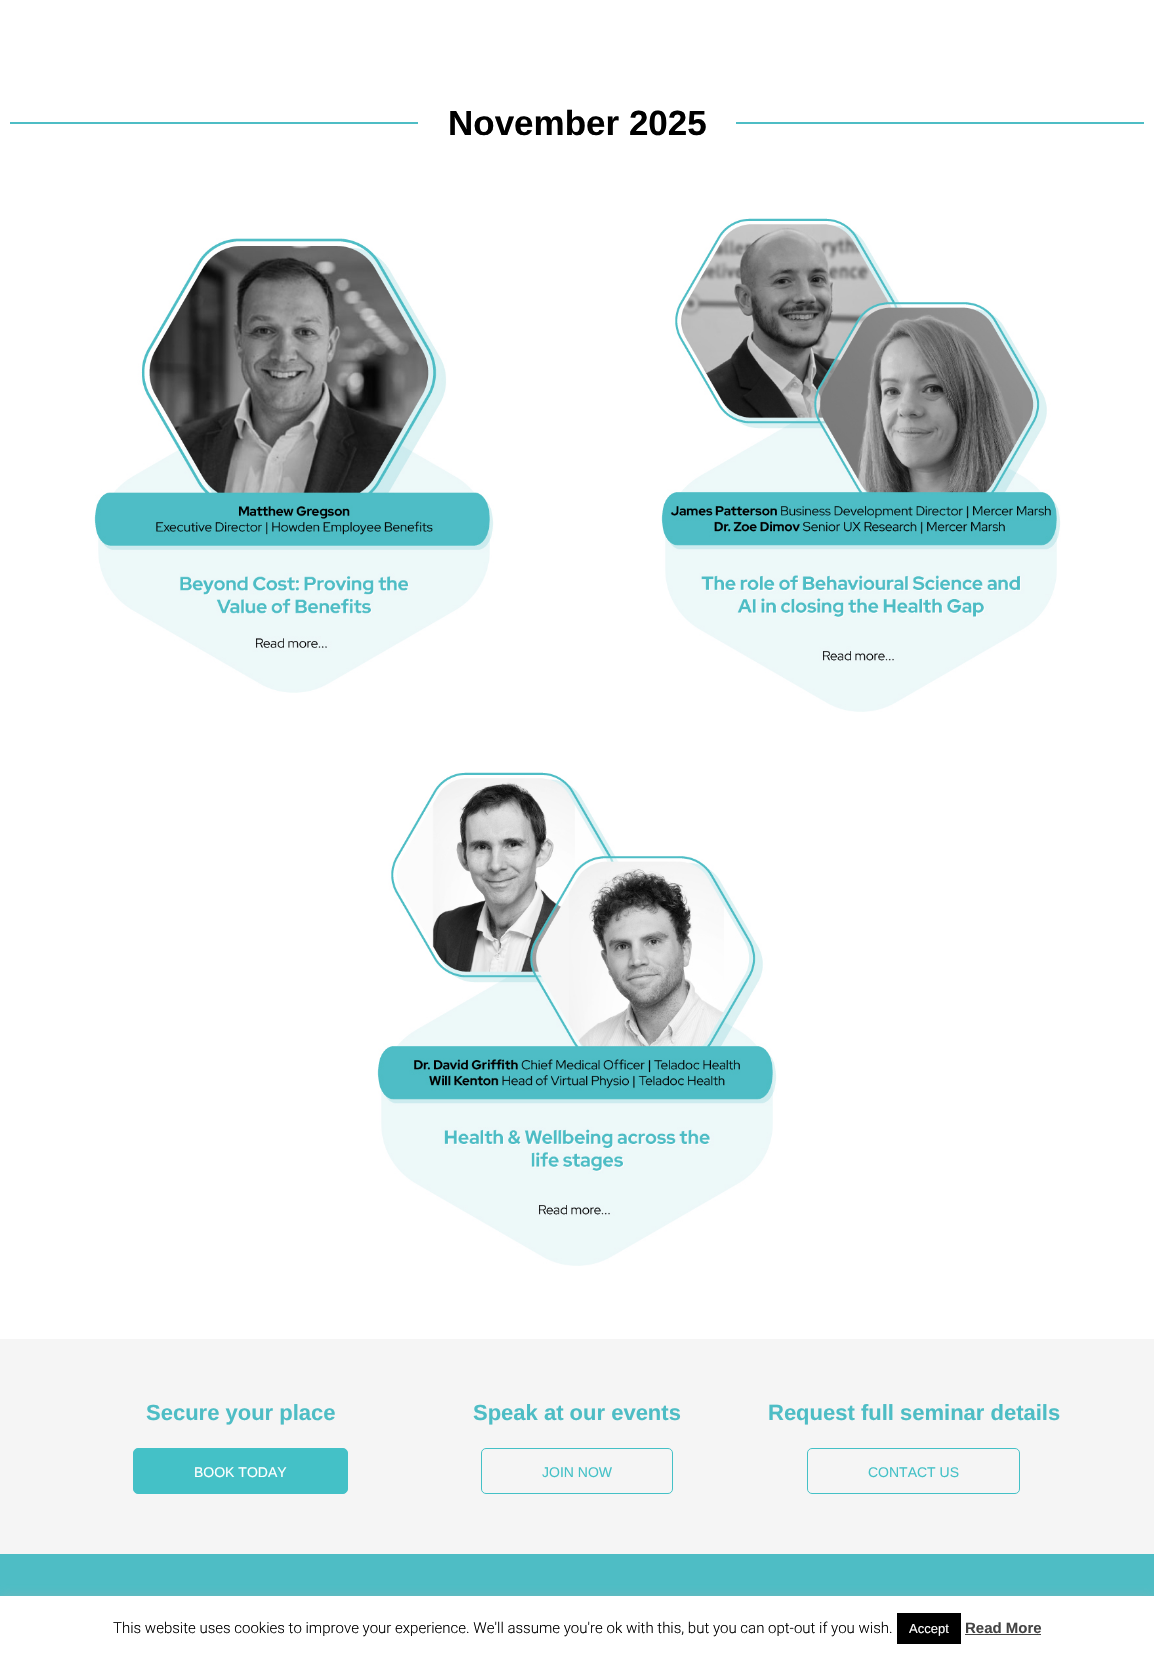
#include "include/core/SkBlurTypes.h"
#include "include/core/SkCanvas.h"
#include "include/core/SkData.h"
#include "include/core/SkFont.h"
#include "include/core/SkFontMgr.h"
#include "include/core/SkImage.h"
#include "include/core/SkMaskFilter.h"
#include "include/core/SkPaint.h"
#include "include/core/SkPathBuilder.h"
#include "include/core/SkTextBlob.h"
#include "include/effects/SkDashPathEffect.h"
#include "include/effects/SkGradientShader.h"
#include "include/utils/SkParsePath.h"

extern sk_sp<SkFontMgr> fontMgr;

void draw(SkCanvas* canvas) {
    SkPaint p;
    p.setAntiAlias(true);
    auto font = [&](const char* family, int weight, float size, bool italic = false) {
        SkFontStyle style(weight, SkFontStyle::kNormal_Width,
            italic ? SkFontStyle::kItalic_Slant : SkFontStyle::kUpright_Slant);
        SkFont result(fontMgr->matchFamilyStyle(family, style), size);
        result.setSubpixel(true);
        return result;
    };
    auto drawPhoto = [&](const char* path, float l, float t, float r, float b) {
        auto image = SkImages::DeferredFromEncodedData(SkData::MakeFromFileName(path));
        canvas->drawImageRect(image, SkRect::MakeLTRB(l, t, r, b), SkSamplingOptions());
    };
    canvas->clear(0xFFFFFFFF);
    p.setColor(0xFF4EBDC5);
    canvas->drawRect(SkRect::MakeLTRB(10, 122, 418, 124), p);
    auto font1 = font("Liberation Sans", 700, 35);
    p.setColor(0xFF000000);
    canvas->drawString("November 2025", 448, 135, font1, p);
    p.setColor(0xFF4EBDC5);
    canvas->drawRect(SkRect::MakeLTRB(736, 122, 1144, 124), p);
    drawPhoto("media/1.png", 94, 238, 494, 693);
    drawPhoto("media/2.png", 661, 218, 1061, 712);
    drawPhoto("media/3.png", 377, 772, 777, 1266);
    p.setColor(0xFFF5F5F5);
    canvas->drawRect(SkRect::MakeLTRB(0, 1339, 1154, 1554), p);
    auto font2 = font("Liberation Sans", 700, 22);
    p.setColor(0xFF4EBDC5);
    canvas->drawString("Secure your place", 146, 1420, font2, p);
    p.setColor(0xFF44C1C7);
    canvas->drawRoundRect(SkRect::MakeLTRB(133.5f, 1448.5f, 347.5f, 1493.5f), 4.5f, 4.5f, p);
    p.setStyle(SkPaint::kStroke_Style);
    p.setStrokeWidth(1);
    canvas->drawRoundRect(SkRect::MakeLTRB(133.5f, 1448.5f, 347.5f, 1493.5f), 4.5f, 4.5f, p);
    auto font3 = font("Liberation Sans", 400, 14);
    p.setStyle(SkPaint::kFill_Style);
    p.setColor(0xFFFFFFFF);
    canvas->drawString("BOOK TODAY", 194, 1477, font3, p);
    p.setColor(0xFF4EBDC5);
    canvas->drawString("Speak at our events", 473, 1420, font2, p);
    p.setStyle(SkPaint::kStroke_Style);
    p.setColor(0xFF44C1C7);
    canvas->drawRoundRect(SkRect::MakeLTRB(481.5f, 1448.5f, 672.5f, 1493.5f), 4.5f, 4.5f, p);
    p.setStyle(SkPaint::kFill_Style);
    canvas->drawString("JOIN NOW", 542, 1477, font3, p);
    p.setColor(0xFF4EBDC5);
    canvas->drawString("Request full seminar details", 768, 1420, font2, p);
    p.setStyle(SkPaint::kStroke_Style);
    p.setColor(0xFF44C1C7);
    canvas->drawRoundRect(SkRect::MakeLTRB(807.5f, 1448.5f, 1019.5f, 1493.5f), 4.5f, 4.5f, p);
    p.setStyle(SkPaint::kFill_Style);
    canvas->drawString("CONTACT US", 868, 1477, font3, p);
    p.setColor(0xFF4EBDC5);
    canvas->drawRect(SkRect::MakeLTRB(0, 1554, 1154, 1596), p);
    p.setColor(0x4DACABAB);
    p.setMaskFilter(SkMaskFilter::MakeBlur(kNormal_SkBlurStyle, 5));
    canvas->drawRect(SkRect::MakeLTRB(0, 1595, 1154, 1655), p);
    p.setMaskFilter(nullptr);
    p.setColor(0xFFFFFFFF);
    canvas->drawRect(SkRect::MakeLTRB(0, 1596, 1154, 1656), p);
    auto font4 = font("Roboto", 300, 15);
    p.setColor(0xFF000000);
    canvas->drawString("This website uses cookies to improve your experience. We'll assume you're ok with this, but you can opt-out if you wish.", 113, 1633, font4, p);
    canvas->drawRect(SkRect::MakeLTRB(897, 1613, 961, 1644), p);
    auto font5 = font("Liberation Sans", 400, 13);
    p.setColor(0xFFFFFFFF);
    canvas->drawString("Accept", 909, 1633, font5, p);
    auto font6 = font("Liberation Sans", 700, 15);
    p.setColor(0xFF444444);
    canvas->drawString("Read More", 965, 1633, font6, p);
    canvas->drawRect(SkRect::MakeLTRB(965, 1634, 1041, 1635), p);
}
